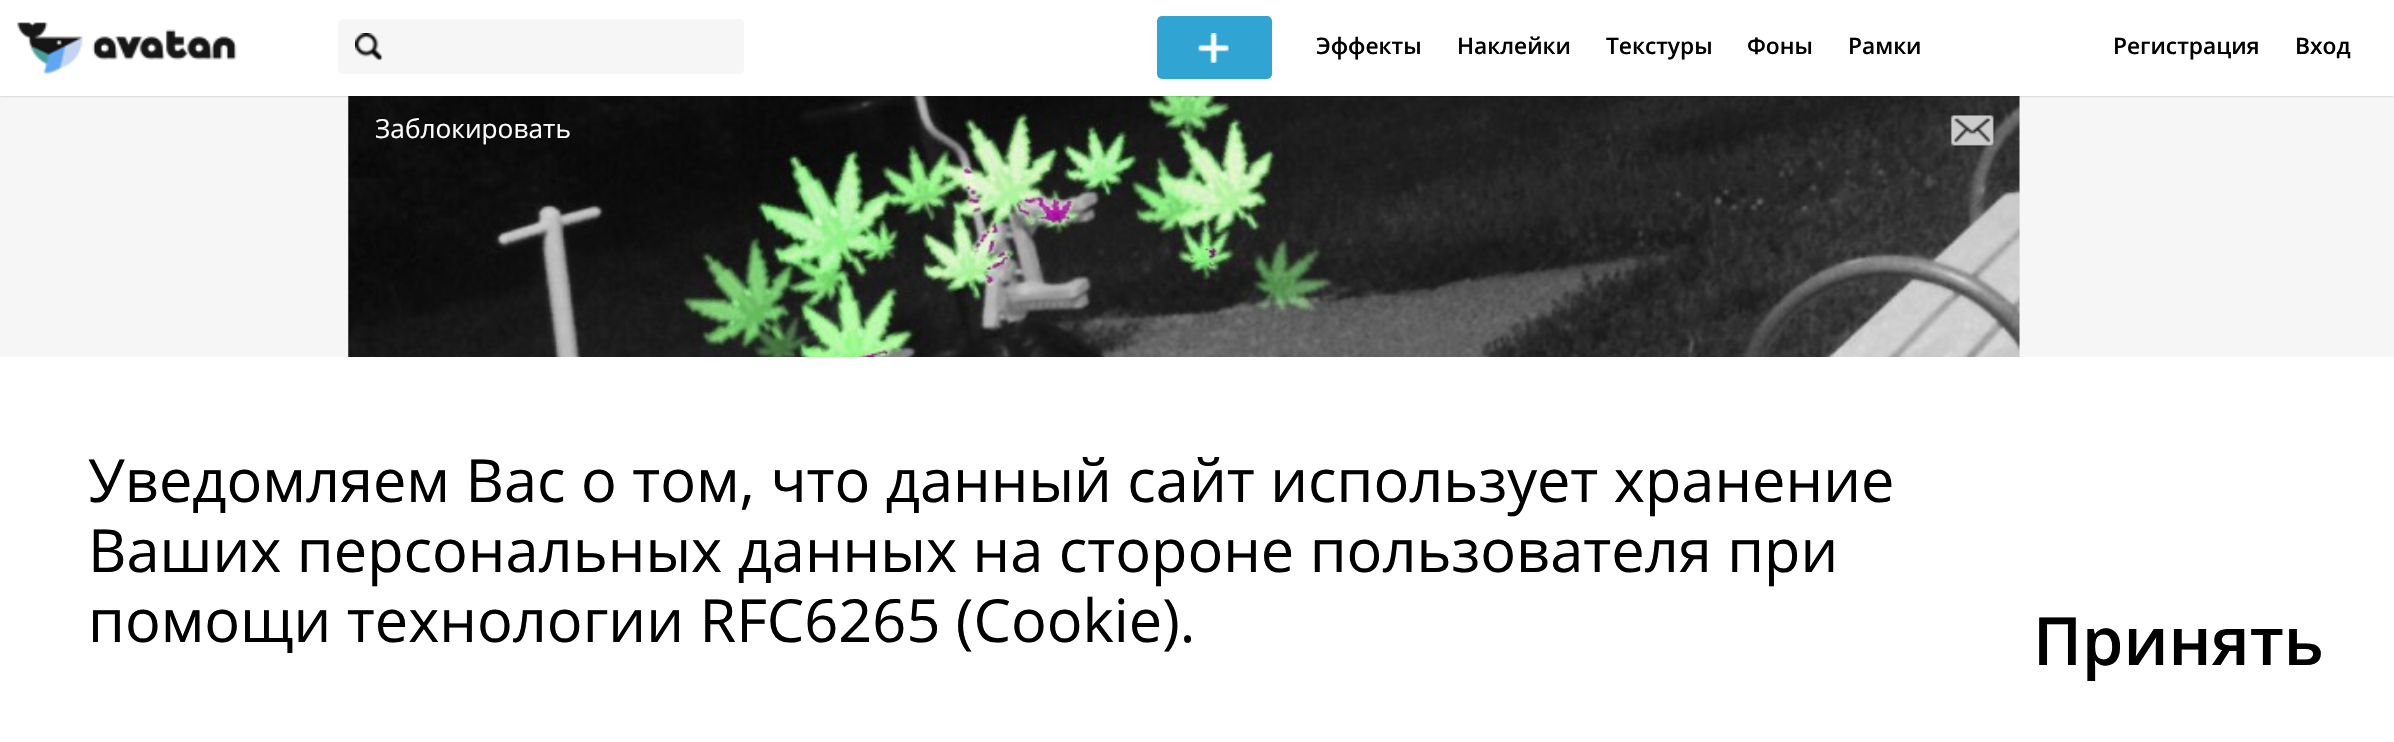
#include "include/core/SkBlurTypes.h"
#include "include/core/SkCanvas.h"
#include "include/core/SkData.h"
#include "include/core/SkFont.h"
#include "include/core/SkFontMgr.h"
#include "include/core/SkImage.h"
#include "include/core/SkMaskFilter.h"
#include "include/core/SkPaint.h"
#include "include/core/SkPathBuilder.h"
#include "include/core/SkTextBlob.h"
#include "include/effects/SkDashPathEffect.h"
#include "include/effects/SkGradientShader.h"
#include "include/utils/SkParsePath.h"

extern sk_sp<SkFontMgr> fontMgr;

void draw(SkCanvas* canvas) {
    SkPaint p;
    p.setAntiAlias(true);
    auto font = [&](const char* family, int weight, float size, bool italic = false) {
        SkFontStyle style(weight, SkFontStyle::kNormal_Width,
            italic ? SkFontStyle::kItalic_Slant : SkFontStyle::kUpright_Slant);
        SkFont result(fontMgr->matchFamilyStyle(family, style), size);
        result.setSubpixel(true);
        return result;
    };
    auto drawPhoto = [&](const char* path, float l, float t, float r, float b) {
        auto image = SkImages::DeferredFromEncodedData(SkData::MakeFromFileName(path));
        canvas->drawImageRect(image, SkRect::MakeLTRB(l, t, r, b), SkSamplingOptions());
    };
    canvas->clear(0xFFF6F6F6);
    p.setColor(0xFFECECEC);
    canvas->drawRect(SkRect::MakeLTRB(348, 96, 2020, 357), p);
    drawPhoto("media/4.png", 348, 96, 2020, 357);
    p.setColor(0x4D000000);
    p.setMaskFilter(SkMaskFilter::MakeBlur(kNormal_SkBlurStyle, 1));
    canvas->drawRect(SkRect::MakeLTRB(0, 0, 2394, 96), p);
    p.setMaskFilter(nullptr);
    p.setColor(0xFFFFFFFF);
    canvas->drawRect(SkRect::MakeLTRB(0, 0, 2394, 96), p);
    drawPhoto("media/1.png", 17, 22, 237, 74);
    p.setColor(0xFFF6F6F6);
    canvas->drawRoundRect(SkRect::MakeLTRB(338, 19, 744, 74), 5, 5, p);
    drawPhoto("media/2.png", 355, 33, 383, 61);
    p.setColor(0xFF30A5D4);
    canvas->drawRoundRect(SkRect::MakeLTRB(1157, 16, 1272, 79), 5, 5, p);
    drawPhoto("media/3.png", 1198, 33, 1229, 63);
    auto font1 = font("Open Sans", 600, 22.75f);
    p.setColor(0xFF000000);
    {
        const struct { const char* s; float x, y; } items[] = {
            {"Эффекты", 1316, 54},
            {"Наклейки", 1457, 54},
            {"Текстуры", 1606, 54},
            {"Фоны", 1747, 54},
            {"Рамки", 1848, 54},
            {"Регистрация", 2113, 54},
            {"Вход", 2295, 54},
        };
        for (auto [s, x, y] : items) {
            canvas->drawString(s, x, y, font1, p);
        }
    }
    auto font2 = font("Open Sans", 400, 26.25f);
    p.setColor(0xFFFFFFFF);
    canvas->drawString("Заблокировать", 375, 138, font2, p);
    drawPhoto("media/5.png", 1950, 115, 1995, 147);
    canvas->drawRect(SkRect::MakeLTRB(0, 357, 2394, 742), p);
    auto font3 = font("Open Sans", 400, 59.5f);
    p.setColor(0xFF000000);
    {
        const struct { const char* s; float x, y; } items[] = {
            {"Уведомляем Вас о том, что данный сайт использует хранение", 88, 502},
            {"Ваших персональных данных на стороне пользователя при", 88, 572},
            {"помощи технологии RFC6265 (Cookie).", 88, 642},
        };
        for (auto [s, x, y] : items) {
            canvas->drawString(s, x, y, font3, p);
        }
    }
    auto font4 = font("Open Sans", 600, 66.5f);
    canvas->drawString("Принять", 2033, 665, font4, p);
}
